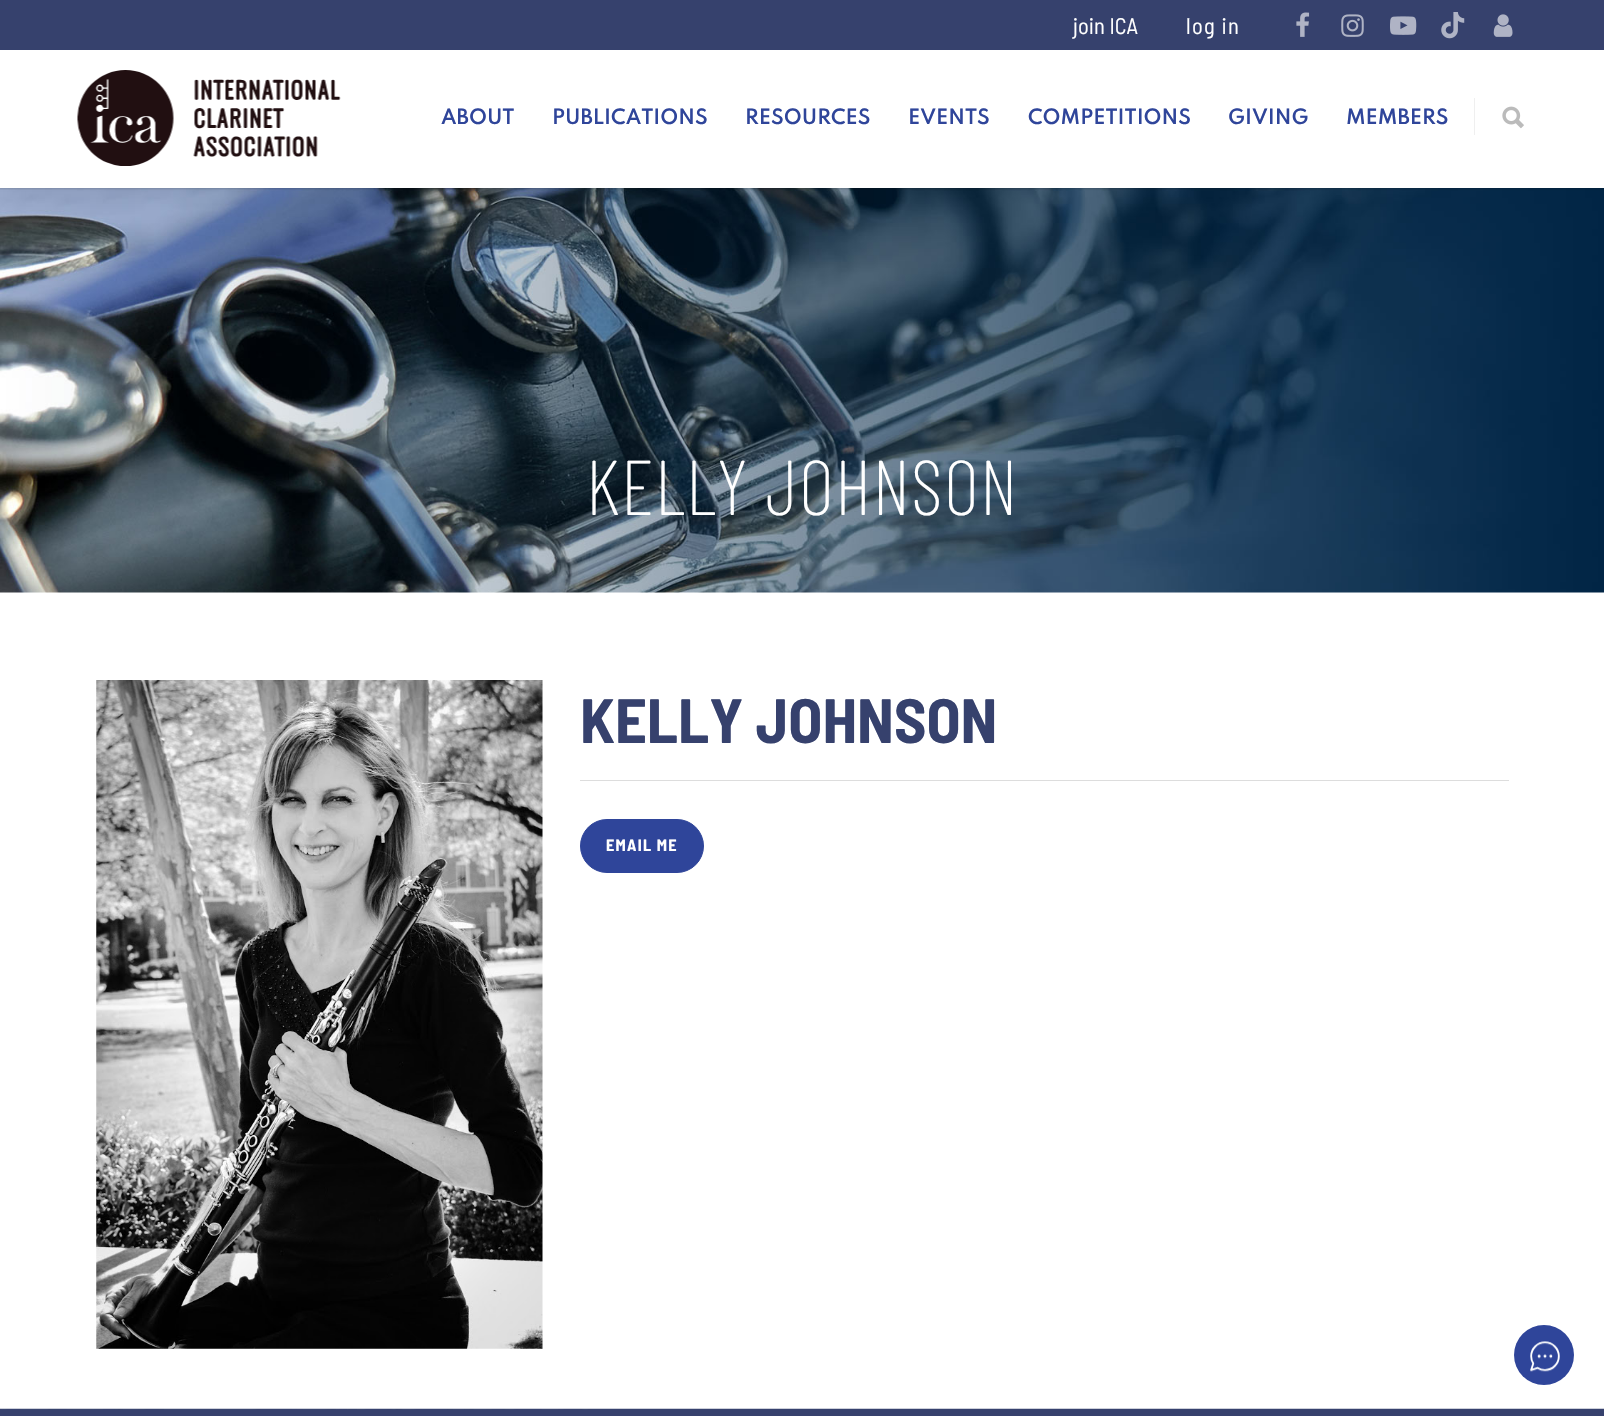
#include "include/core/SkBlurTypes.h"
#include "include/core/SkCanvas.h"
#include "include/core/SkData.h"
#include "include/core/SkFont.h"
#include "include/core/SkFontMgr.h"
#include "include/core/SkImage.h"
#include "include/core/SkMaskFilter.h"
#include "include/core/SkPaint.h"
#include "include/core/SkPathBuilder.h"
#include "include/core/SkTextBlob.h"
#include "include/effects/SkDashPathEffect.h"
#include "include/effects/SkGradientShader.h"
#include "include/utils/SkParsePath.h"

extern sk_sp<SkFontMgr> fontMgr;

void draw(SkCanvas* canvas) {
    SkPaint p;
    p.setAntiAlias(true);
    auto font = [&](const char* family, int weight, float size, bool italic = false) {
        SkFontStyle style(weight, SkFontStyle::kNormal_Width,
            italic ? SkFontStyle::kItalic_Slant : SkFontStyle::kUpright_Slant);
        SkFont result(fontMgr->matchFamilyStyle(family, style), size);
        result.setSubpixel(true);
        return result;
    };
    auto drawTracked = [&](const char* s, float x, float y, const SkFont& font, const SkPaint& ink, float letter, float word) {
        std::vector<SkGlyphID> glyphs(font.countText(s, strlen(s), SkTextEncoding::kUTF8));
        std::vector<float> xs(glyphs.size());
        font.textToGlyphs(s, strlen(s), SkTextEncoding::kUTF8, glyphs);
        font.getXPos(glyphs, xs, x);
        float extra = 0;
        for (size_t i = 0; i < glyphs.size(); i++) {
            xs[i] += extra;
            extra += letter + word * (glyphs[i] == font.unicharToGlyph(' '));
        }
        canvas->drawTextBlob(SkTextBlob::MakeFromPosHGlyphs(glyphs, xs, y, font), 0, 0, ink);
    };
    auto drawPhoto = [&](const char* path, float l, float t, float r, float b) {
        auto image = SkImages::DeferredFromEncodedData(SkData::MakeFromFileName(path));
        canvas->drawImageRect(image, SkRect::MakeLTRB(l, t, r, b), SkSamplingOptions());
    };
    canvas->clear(0xFFFFFFFF);
    drawPhoto("media/8.png", 0, 188, 1604, 593);
    p.setColor(0x29000000);
    p.setMaskFilter(SkMaskFilter::MakeBlur(kNormal_SkBlurStyle, 1));
    canvas->drawRect(SkRect::MakeLTRB(-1, -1, 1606, 189), p);
    p.setMaskFilter(nullptr);
    p.setColor(0xFF36416D);
    canvas->drawRect(SkRect::MakeLTRB(0, 0, 1604, 50), p);
    auto font1 = font("Barlow Semi Condensed", 400, 22.5f);
    p.setColor(0xFFFFFFFF);
    canvas->drawString("join ICA", 1073, 34, font1, p);
    drawTracked("log in", 1186, 34, font1, p, 1.25f, 0);
    drawPhoto("media/1.png", 1296, 12, 1310, 37);
    drawPhoto("media/2.png", 1341, 14, 1364, 37);
    drawPhoto("media/3.png", 1390, 16, 1417, 35);
    drawPhoto("media/4.png", 1441, 12, 1465, 39);
    drawPhoto("media/5.png", 1493, 14, 1513, 37);
    canvas->drawRect(SkRect::MakeLTRB(0, 50, 1604, 188), p);
    drawPhoto("media/6.png", 77, 70, 341, 166);
    auto font2 = font("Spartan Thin", 600, 18.75f);
    p.setColor(0xFF2F459A);
    {
        const struct { const char* s; float x, y; } items[] = {
            {"ABOUT", 441, 124},
            {"PUBLICATIONS", 552, 124},
            {"RESOURCES", 745, 124},
            {"EVENTS", 908, 124},
            {"COMPETITIONS", 1028, 124},
            {"GIVING", 1228, 124},
            {"MEMBERS", 1346, 124},
        };
        for (auto [s, x, y] : items) {
            canvas->drawString(s, x, y, font2, p);
        }
    }
    p.setColor(0xFFEFEFEF);
    canvas->drawRect(SkRect::MakeLTRB(1474, 98, 1475, 135), p);
    drawPhoto("media/7.png", 1502, 106, 1524, 129);
    auto font3 = font("Barlow Condensed", 200, 77.5f);
    p.setColor(0xFFFFFFFF);
    drawTracked("KELLY JOHNSON", 586, 515, font3, p, 1.25f, 0);
    drawPhoto("media/9.png", 96, 680, 543, 1349);
    auto font4 = font("Barlow Semi Condensed", 700, 62.5f);
    p.setColor(0xFF36416D);
    canvas->drawString("KELLY JOHNSON", 580, 743, font4, p);
    p.setColor(0xFFDDDDDD);
    canvas->drawRect(SkRect::MakeLTRB(580, 780, 1509, 781), p);
    p.setColor(0xFF2F459A);
    canvas->drawRoundRect(SkRect::MakeLTRB(580.5f, 819.5f, 703.5f, 872.5f), 26.5f, 26.5f, p);
    p.setStyle(SkPaint::kStroke_Style);
    p.setStrokeWidth(1);
    canvas->drawRoundRect(SkRect::MakeLTRB(580.5f, 819.5f, 703.5f, 872.5f), 26.5f, 26.5f, p);
    auto font5 = font("Barlow Semi Condensed", 700, 16.25f);
    p.setStyle(SkPaint::kFill_Style);
    p.setColor(0xFFFFFFFF);
    drawTracked("EMAIL ME", 606, 851, font5, p, 1.25f, 0);
    p.setColor(0xFF36416D);
    canvas->drawRect(SkRect::MakeLTRB(0, 1410, 1604, 1416), p);
    drawPhoto("media/10.png", 0, 1408, 1604, 1410);
    p.setColor(0xFF2F459A);
    canvas->drawCircle(1544, 1355, 30, p);
    drawPhoto("media/11.png", 1530, 1341, 1560, 1372);
}
